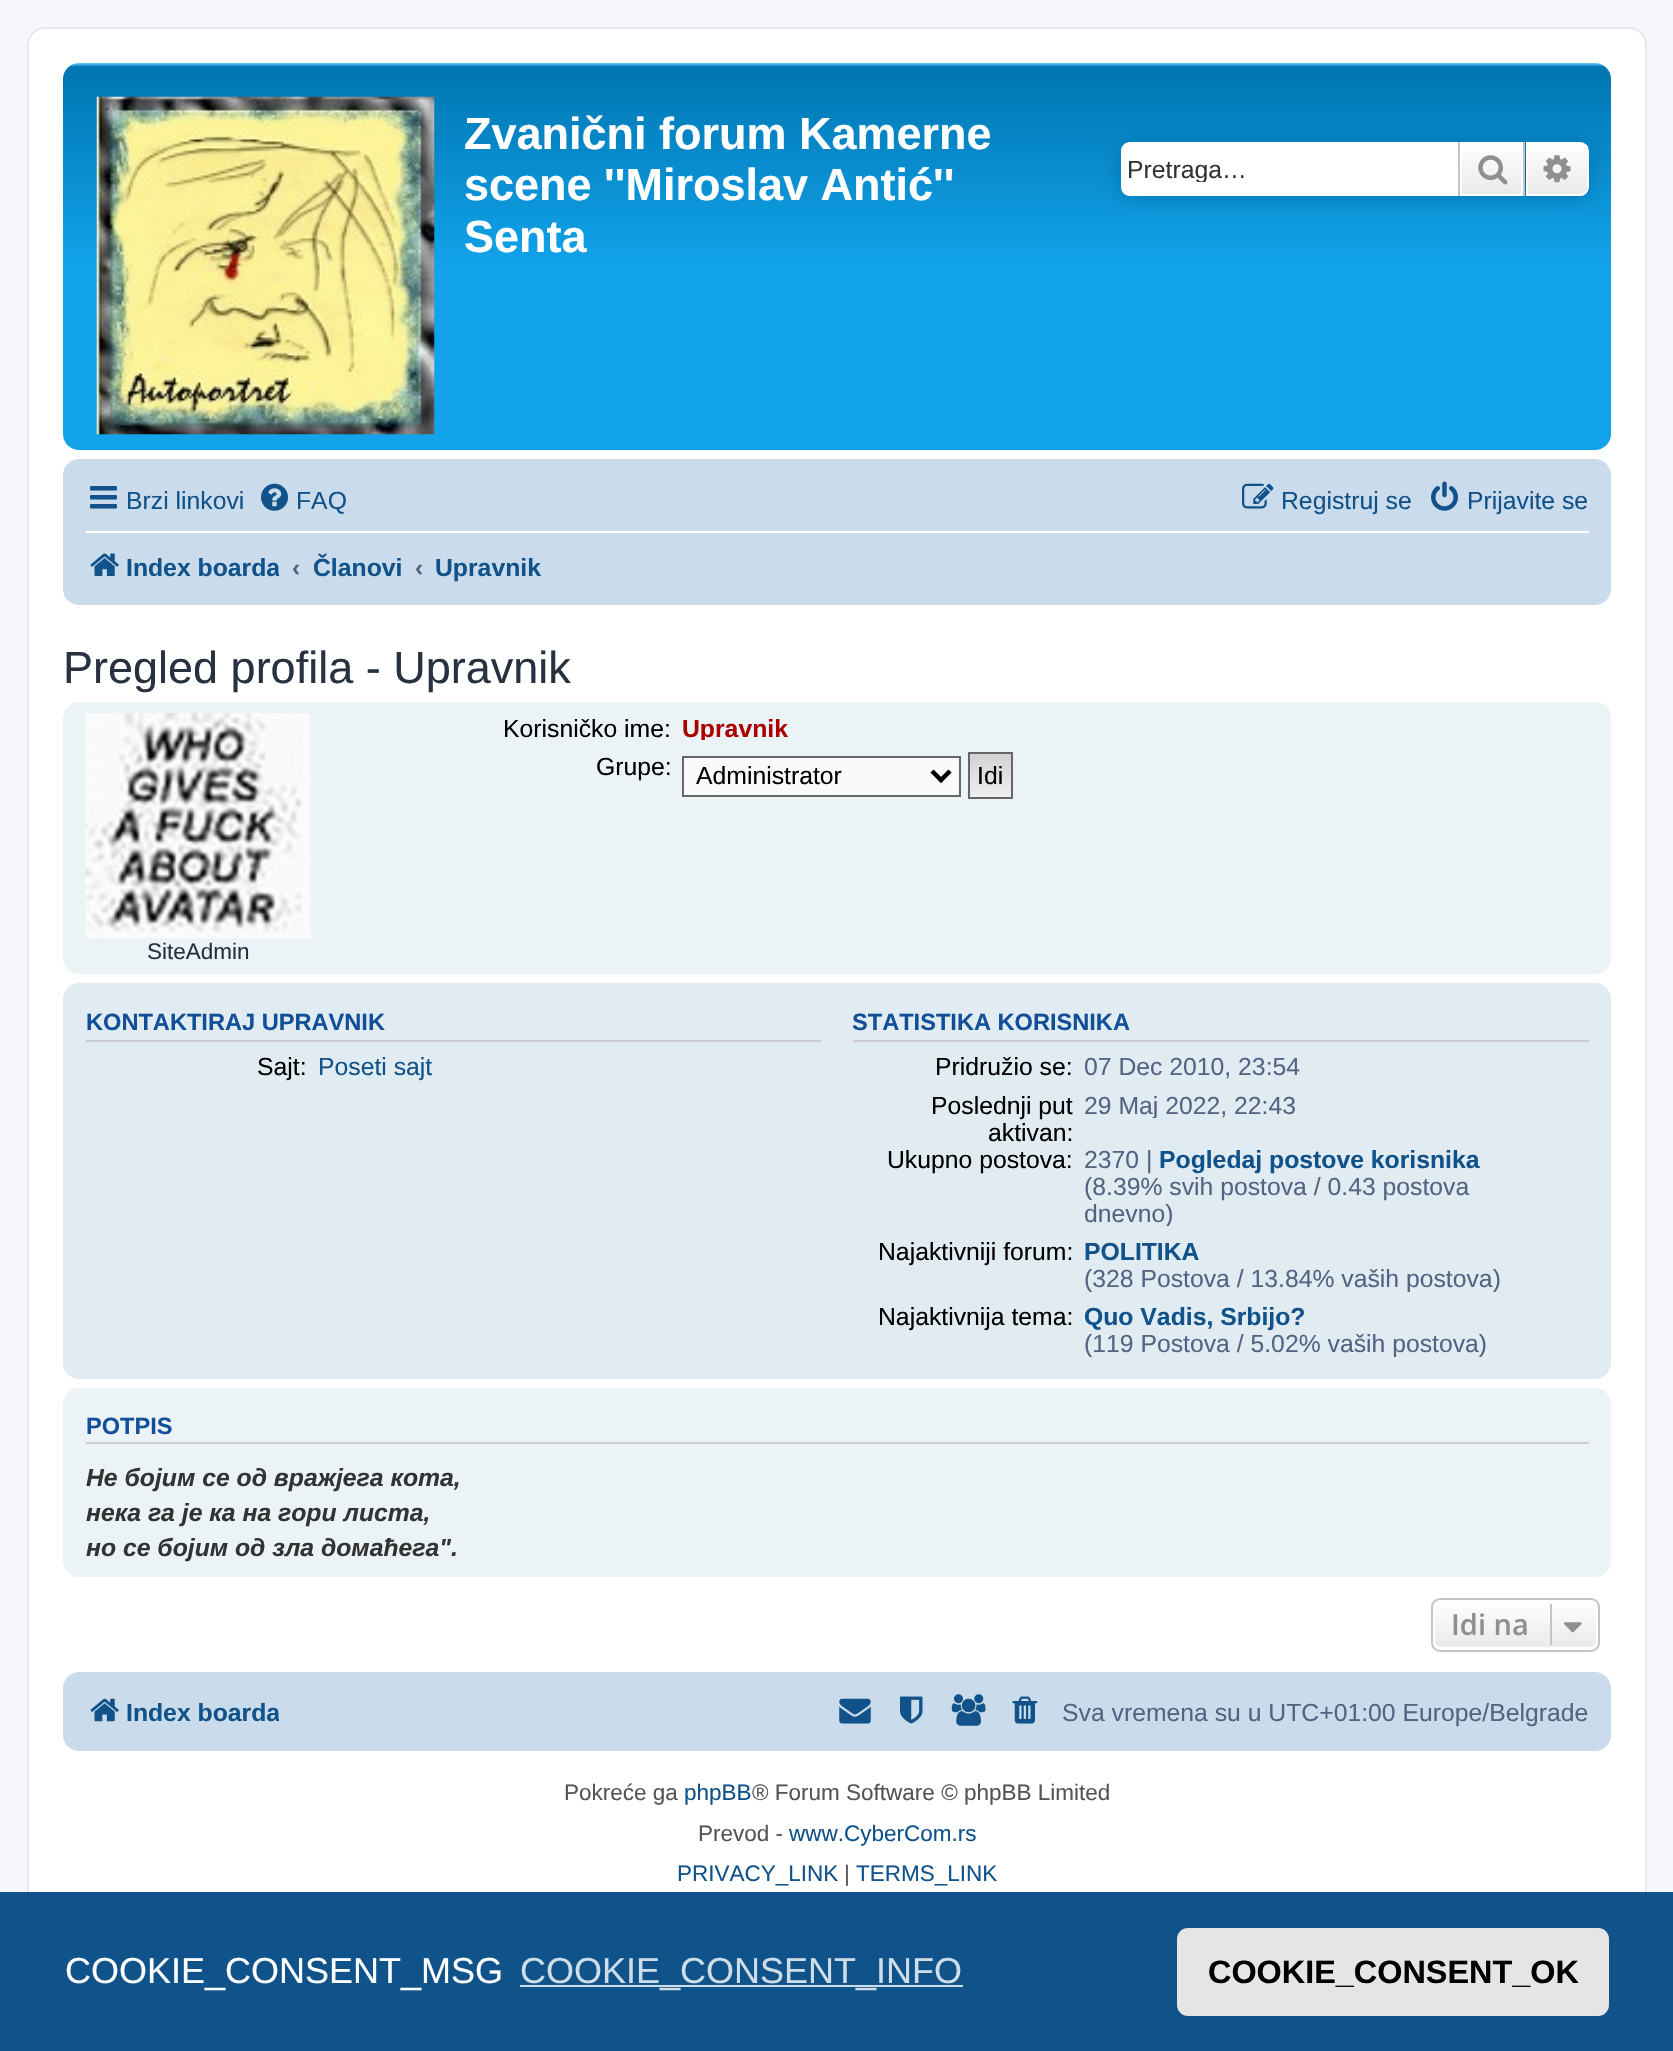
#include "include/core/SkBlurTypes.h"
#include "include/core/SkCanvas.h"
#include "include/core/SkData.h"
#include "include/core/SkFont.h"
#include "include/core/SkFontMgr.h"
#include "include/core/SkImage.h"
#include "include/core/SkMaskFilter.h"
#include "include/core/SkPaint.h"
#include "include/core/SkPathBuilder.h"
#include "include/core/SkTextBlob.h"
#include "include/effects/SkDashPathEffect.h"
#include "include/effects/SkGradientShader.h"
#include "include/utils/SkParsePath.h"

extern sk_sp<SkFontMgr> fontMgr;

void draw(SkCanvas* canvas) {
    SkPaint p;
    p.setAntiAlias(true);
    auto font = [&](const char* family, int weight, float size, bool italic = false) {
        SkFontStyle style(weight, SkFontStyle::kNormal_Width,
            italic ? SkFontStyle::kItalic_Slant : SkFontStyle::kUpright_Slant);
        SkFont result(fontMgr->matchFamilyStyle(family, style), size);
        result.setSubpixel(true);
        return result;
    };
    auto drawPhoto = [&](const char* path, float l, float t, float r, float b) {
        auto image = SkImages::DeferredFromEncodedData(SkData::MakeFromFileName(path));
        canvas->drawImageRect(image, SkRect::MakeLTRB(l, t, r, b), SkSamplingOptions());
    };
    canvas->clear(0xFFF5F7FA);
    p.setColor(0xFFFFFFFF);
    canvas->drawRoundRect(SkRect::MakeLTRB(28, 28, 1646, 1952), 17, 17, p);
    p.setStyle(SkPaint::kStroke_Style);
    p.setStrokeWidth(2);
    p.setColor(0xFFE6E9ED);
    canvas->drawRoundRect(SkRect::MakeLTRB(28, 28, 1646, 1952), 17, 17, p);
    p.setStyle(SkPaint::kFill_Style);
    {
        const SkColor colors[] = {0xFF6ACEFF, 0xFF0076B1, 0xFF12A3EB, 0xFF12A3EB};
        const float stops[] = {0, 0.01f, 0.53f, 1};
        const SkPoint ends[] = {{837, 63}, {837, 450}};
        p.setShader(SkGradientShader::MakeLinear(ends, colors, stops, 4, SkTileMode::kClamp));
        p.setAlpha(255);
    }
    canvas->drawRoundRect(SkRect::MakeLTRB(63, 63, 1611, 450), 16, 16, p);
    drawPhoto("media/1.png", 96, 96, 435, 435);
    auto font1 = font("Liberation Sans", 700, 45);
    p.setShader(nullptr);
    p.setColor(0xFFFFFFFF);
    {
        const struct { const char* s; float x, y; } items[] = {
            {"Zvanični forum Kamerne", 464, 149},
            {"scene ''Miroslav Antić''", 464, 200},
            {"Senta", 464, 252},
        };
        for (auto [s, x, y] : items) {
            canvas->drawString(s, x, y, font1, p);
        }
    }
    p.setColor(0xFF0075B0);
    p.setMaskFilter(SkMaskFilter::MakeBlur(kNormal_SkBlurStyle, 11));
    canvas->drawRoundRect(SkRect::MakeLTRB(1121, 142, 1589, 196), 9, 9, p);
    p.setMaskFilter(nullptr);
    p.setColor(0xFFFFFFFF);
    canvas->drawPath(SkPathBuilder().moveTo(1130, 142).lineTo(1458, 142).lineTo(1458, 196).lineTo(1130, 196).cubicTo(1125, 196, 1121, 192, 1121, 187).lineTo(1121, 151).cubicTo(1121, 146, 1125, 142, 1130, 142).close().detach(), p);
    canvas->save();
    canvas->clipRect(SkRect::MakeLTRB(1127, 155, 1442, 182));
    auto font2 = font("Liberation Sans", 400, 24.75f);
    p.setColor(0xFF333333);
    canvas->drawString("Pretraga…", 1127, 178, font2, p);
    canvas->restore();
    {
        const SkColor colors[] = {0xFFFFFFFF, 0xFFE9E9E9};
        const float stops[] = {0, 1};
        const SkPoint ends[] = {{1492, 142}, {1492, 196}};
        p.setShader(SkGradientShader::MakeLinear(ends, colors, stops, 2, SkTileMode::kClamp));
        p.setAlpha(255);
    }
    canvas->drawRect(SkRect::MakeLTRB(1462, 144, 1521, 194), p);
    p.setStyle(SkPaint::kStroke_Style);
    p.setShader(nullptr);
    p.setColor(0xFFFFFFFF);
    canvas->drawRect(SkRect::MakeLTRB(1461, 143, 1522, 195), p);
    p.setStyle(SkPaint::kFill_Style);
    p.setColor(0xFFC7C3BF);
    canvas->drawRect(SkRect::MakeLTRB(1523, 142, 1525, 196), p);
    canvas->drawRect(SkRect::MakeLTRB(1458, 142, 1460, 196), p);
    drawPhoto("media/2.png", 1478, 155, 1508, 185);
    {
        const SkColor colors[] = {0xFFFFFFFF, 0xFFE9E9E9};
        const float stops[] = {0, 1};
        const SkPoint ends[] = {{1557, 142}, {1557, 196}};
        p.setShader(SkGradientShader::MakeLinear(ends, colors, stops, 2, SkTileMode::kClamp));
        p.setAlpha(255);
    }
    canvas->drawPath(SkPathBuilder().moveTo(1527, 143).lineTo(1580, 143).cubicTo(1584.5f, 143, 1588, 146.5f, 1588, 151).lineTo(1588, 187).cubicTo(1588, 191.5f, 1584.5f, 195, 1580, 195).lineTo(1527, 195).close().detach(), p);
    p.setStyle(SkPaint::kStroke_Style);
    p.setShader(nullptr);
    p.setColor(0xFFFFFFFF);
    canvas->drawPath(SkPathBuilder().moveTo(1527, 143).lineTo(1580, 143).cubicTo(1584.5f, 143, 1588, 146.5f, 1588, 151).lineTo(1588, 187).cubicTo(1588, 191.5f, 1584.5f, 195, 1580, 195).lineTo(1527, 195).close().detach(), p);
    drawPhoto("media/3.png", 1543, 155, 1571, 183);
    p.setStyle(SkPaint::kFill_Style);
    p.setColor(0xFFCADCEB);
    canvas->drawRoundRect(SkRect::MakeLTRB(63, 459, 1611, 605), 16, 16, p);
    drawPhoto("media/4.png", 90, 486, 117, 509);
    p.setColor(0xFF105289);
    canvas->drawString("Brzi linkovi", 126, 509, font2, p);
    drawPhoto("media/5.png", 261, 483, 288, 511);
    canvas->drawString("FAQ", 296, 509, font2, p);
    drawPhoto("media/6.png", 1242, 483, 1274, 509);
    canvas->drawString("Registruj se", 1281, 509, font2, p);
    drawPhoto("media/7.png", 1431, 481, 1458, 511);
    canvas->drawString("Prijavite se", 1467, 509, font2, p);
    p.setColor(0xFFFFFFFF);
    canvas->drawRect(SkRect::MakeLTRB(86, 531, 1589, 533), p);
    drawPhoto("media/8.png", 90, 553, 119, 576);
    canvas->save();
    canvas->clipRect(SkRect::MakeLTRB(86, 540, 279, 594));
    auto font3 = font("Liberation Sans", 700, 24.75f);
    p.setColor(0xFF105289);
    canvas->drawString("Index boarda", 126, 576, font3, p);
    canvas->restore();
    p.setColor(0xFF536482);
    canvas->drawString("‹", 292, 576, font3, p);
    p.setColor(0xFF105289);
    canvas->drawString("Članovi", 313, 576, font3, p);
    p.setColor(0xFF536482);
    canvas->drawString("‹", 415, 576, font3, p);
    p.setColor(0xFF105289);
    canvas->drawString("Upravnik", 435, 576, font3, p);
    auto font4 = font("Liberation Sans", 400, 45);
    p.setColor(0xFF28313F);
    canvas->drawString("Pregled profila - Upravnik", 63, 683, font4, p);
    p.setColor(0xFFECF3F7);
    canvas->drawRoundRect(SkRect::MakeLTRB(63, 702, 1611, 974), 16, 16, p);
    p.setColor(0xFF000000);
    canvas->drawString("Korisničko ime:", 503, 737, font2, p);
    canvas->save();
    canvas->clipRect(SkRect::MakeLTRB(671, 713, 1465, 740));
    p.setColor(0xFFAA0000);
    canvas->drawString("Upravnik", 682, 737, font3, p);
    canvas->restore();
    p.setColor(0xFF000000);
    canvas->drawString("Grupe:", 596, 775, font2, p);
    p.setColor(0xFFFAFAFA);
    canvas->drawRect(SkRect::MakeLTRB(683, 757, 960, 796), p);
    p.setStyle(SkPaint::kStroke_Style);
    p.setColor(0xFF666666);
    canvas->drawRect(SkRect::MakeLTRB(683, 757, 960, 796), p);
    p.setStrokeWidth(4.5f);
    p.setColor(0xFF000000);
    canvas->drawPath(SkPathBuilder().moveTo(932, 771).lineTo(941, 780).lineTo(950, 771).detach(), p);
    p.setStyle(SkPaint::kFill_Style);
    canvas->drawString("Administrator", 696, 784, font2, p);
    {
        const SkColor colors[] = {0xFFD2D2D2, 0xFFEFEFEF};
        const float stops[] = {0, 1};
        const SkPoint ends[] = {{990, 754}, {990, 797}};
        p.setShader(SkGradientShader::MakeLinear(ends, colors, stops, 2, SkTileMode::kClamp));
        p.setAlpha(255);
    }
    canvas->drawRect(SkRect::MakeLTRB(970, 754, 1011, 797), p);
    p.setStyle(SkPaint::kStroke_Style);
    p.setStrokeWidth(2);
    p.setShader(nullptr);
    p.setColor(0xFF666666);
    canvas->drawRect(SkRect::MakeLTRB(969, 753, 1012, 798), p);
    p.setStyle(SkPaint::kFill_Style);
    p.setColor(0xFF000000);
    canvas->drawString("Idi", 977, 784, font2, p);
    drawPhoto("media/9.png", 85, 713, 311, 939);
    auto font5 = font("Liberation Sans", 400, 22.5f);
    p.setColor(0xFF28313F);
    canvas->drawString("SiteAdmin", 147, 959, font5, p);
    p.setColor(0xFFE1EBF2);
    canvas->drawRoundRect(SkRect::MakeLTRB(63, 983, 1611, 1379), 16, 16, p);
    p.setColor(0xFFCCCCCC);
    canvas->drawRect(SkRect::MakeLTRB(86, 1040, 821, 1042), p);
    auto font6 = font("Liberation Sans", 700, 23.6f);
    p.setColor(0xFF115098);
    canvas->drawString("KONTAKTIRAJ UPRAVNIK", 86, 1030, font6, p);
    p.setColor(0xFF000000);
    canvas->drawString("Sajt:", 257, 1075, font2, p);
    p.setColor(0xFF105289);
    canvas->drawString("Poseti sajt", 318, 1075, font2, p);
    p.setColor(0xFFCCCCCC);
    canvas->drawRect(SkRect::MakeLTRB(853, 1040, 1589, 1042), p);
    p.setColor(0xFF115098);
    canvas->drawString("STATISTIKA KORISNIKA", 852, 1030, font6, p);
    p.setColor(0xFF000000);
    canvas->drawString("Pridružio se:", 935, 1075, font2, p);
    p.setColor(0xFF536482);
    canvas->drawString("07 Dec 2010, 23:54", 1084, 1075, font2, p);
    p.setColor(0xFF000000);
    canvas->drawString("Poslednji put", 931, 1114, font2, p);
    canvas->drawString("aktivan:", 988, 1141, font2, p);
    canvas->save();
    canvas->clipRect(SkRect::MakeLTRB(1073, 1091, 1564, 1118));
    p.setColor(0xFF536482);
    canvas->drawString("29 Maj 2022, 22:43", 1084, 1114, font2, p);
    canvas->restore();
    p.setColor(0xFF000000);
    canvas->drawString("Ukupno postova:", 887, 1168, font2, p);
    p.setColor(0xFF536482);
    canvas->drawString("2370 |", 1084, 1168, font2, p);
    p.setColor(0xFF105289);
    canvas->drawString("Pogledaj postove korisnika", 1159, 1168, font3, p);
    p.setColor(0xFF536482);
    canvas->drawString("(8.39% svih postova / 0.43 postova", 1084, 1195, font2, p);
    canvas->save();
    canvas->clipRect(SkRect::MakeLTRB(1073, 1145, 1564, 1226));
    canvas->drawString("dnevno)", 1084, 1222, font2, p);
    canvas->restore();
    p.setColor(0xFF000000);
    canvas->drawString("Najaktivniji forum:", 878, 1260, font2, p);
    p.setColor(0xFF105289);
    canvas->drawString("POLITIKA", 1084, 1260, font3, p);
    canvas->save();
    canvas->clipRect(SkRect::MakeLTRB(1073, 1238, 1564, 1292));
    p.setColor(0xFF536482);
    canvas->drawString("(328 Postova / 13.84% vaših postova)", 1084, 1287, font2, p);
    canvas->restore();
    p.setColor(0xFF000000);
    canvas->drawString("Najaktivnija tema:", 878, 1325, font2, p);
    p.setColor(0xFF105289);
    canvas->drawString("Quo Vadis, Srbijo?", 1084, 1325, font3, p);
    canvas->save();
    canvas->clipRect(SkRect::MakeLTRB(1073, 1303, 1564, 1357));
    p.setColor(0xFF536482);
    canvas->drawString("(119 Postova / 5.02% vaših postova)", 1084, 1352, font2, p);
    canvas->restore();
    p.setColor(0xFFECF3F7);
    canvas->drawRoundRect(SkRect::MakeLTRB(63, 1388, 1611, 1577), 16, 16, p);
    p.setColor(0xFFCCCCCC);
    canvas->drawRect(SkRect::MakeLTRB(86, 1442, 1589, 1444), p);
    p.setColor(0xFF115098);
    canvas->drawString("POTPIS", 86, 1434, font6, p);
    auto font7 = font("Liberation Sans", 700, 24.75f, true);
    p.setColor(0xFF333333);
    {
        const struct { const char* s; float x, y; } items[] = {
            {"Не бојим се од вражјега кота,", 86, 1486},
            {"нека га је ка на гори листа,", 86, 1521},
            {"но се бојим од зла домаћега\".", 86, 1556},
        };
        for (auto [s, x, y] : items) {
            canvas->drawString(s, x, y, font7, p);
        }
    }
    canvas->save();
    canvas->clipPath(SkPathBuilder().moveTo(1440, 1598).lineTo(1591, 1598).cubicTo(1596, 1598, 1600, 1602, 1600, 1607).lineTo(1600, 1643).cubicTo(1600, 1648, 1596, 1652, 1591, 1652).lineTo(1440, 1652).cubicTo(1435, 1652, 1431, 1648, 1431, 1643).lineTo(1431, 1607).cubicTo(1431, 1602, 1435, 1598, 1440, 1598).close().detach(), true);
    {
        const SkColor colors[] = {0xFFFFFFFF, 0xFFE9E9E9};
        const float stops[] = {0, 1};
        const SkPoint ends[] = {{1515, 1600}, {1515, 1649}};
        p.setShader(SkGradientShader::MakeLinear(ends, colors, stops, 2, SkTileMode::kClamp));
        p.setAlpha(255);
    }
    canvas->drawRect(SkRect::MakeLTRB(1431, 1600, 1600, 1649), p);
    canvas->restore();
    p.setStyle(SkPaint::kStroke_Style);
    p.setShader(nullptr);
    p.setColor(0xFFFFFFFF);
    canvas->drawRoundRect(SkRect::MakeLTRB(1434, 1601, 1597, 1648), 6, 6, p);
    p.setColor(0xFFC7C3BF);
    canvas->drawRoundRect(SkRect::MakeLTRB(1432, 1599, 1599, 1651), 8, 8, p);
    auto font8 = font("Open Sans", 600, 29);
    p.setStyle(SkPaint::kFill_Style);
    p.setColor(0xFF8F8F8F);
    canvas->drawString("Idi na", 1451, 1635, font8, p);
    p.setColor(0xFFC7C3BF);
    canvas->drawRect(SkRect::MakeLTRB(1550, 1604, 1552, 1645), p);
    drawPhoto("media/10.png", 1563, 1622, 1582, 1633);
    p.setColor(0xFFCADCEB);
    canvas->drawRoundRect(SkRect::MakeLTRB(63, 1672, 1611, 1751), 16, 16, p);
    drawPhoto("media/11.png", 90, 1698, 119, 1722);
    canvas->save();
    canvas->clipRect(SkRect::MakeLTRB(86, 1685, 279, 1739));
    p.setColor(0xFF105289);
    canvas->drawString("Index boarda", 126, 1721, font3, p);
    canvas->restore();
    drawPhoto("media/12.png", 839, 1698, 871, 1724);
    drawPhoto("media/13.png", 900, 1696, 923, 1724);
    drawPhoto("media/14.png", 951, 1694, 986, 1726);
    drawPhoto("media/15.png", 1012, 1696, 1038, 1724);
    p.setColor(0xFF536482);
    canvas->drawString("Sva vremena su u UTC+01:00 Europe/Belgrade", 1062, 1721, font2, p);
    p.setColor(0xFF555555);
    canvas->drawString("Pokreće ga", 564, 1800, font5, p);
    p.setColor(0xFF105289);
    canvas->drawString("phpBB", 684, 1800, font5, p);
    p.setColor(0xFF555555);
    canvas->drawString("® Forum Software © phpBB Limited", 752, 1800, font5, p);
    canvas->drawString("Prevod -", 698, 1841, font5, p);
    p.setColor(0xFF105289);
    canvas->drawString("www.CyberCom.rs", 789, 1841, font5, p);
    canvas->drawString("PRIVACY_LINK", 677, 1881, font5, p);
    p.setColor(0xFF555555);
    canvas->drawString("|", 844, 1881, font5, p);
    p.setColor(0xFF105289);
    canvas->drawString("TERMS_LINK", 856, 1881, font5, p);
    p.setColor(0xFF0F538A);
    canvas->drawRect(SkRect::MakeLTRB(0, 1892, 1673, 2051), p);
    auto font9 = font("Liberation Sans", 400, 36);
    p.setColor(0xFFFFFFFF);
    canvas->drawString("COOKIE_CONSENT_MSG", 65, 1983, font9, p);
    p.setColor(0xFFCFDDE8);
    canvas->drawRect(SkRect::MakeLTRB(520, 1985, 963, 1987), p);
    canvas->drawString("COOKIE_CONSENT_INFO", 520, 1983, font9, p);
    p.setColor(0xFFE5E5E5);
    canvas->drawRoundRect(SkRect::MakeLTRB(1177, 1928, 1609, 2016), 11, 11, p);
    auto font10 = font("Liberation Sans", 700, 32.4f);
    p.setColor(0xFF000000);
    canvas->drawString("COOKIE_CONSENT_OK", 1208, 1983, font10, p);
}
